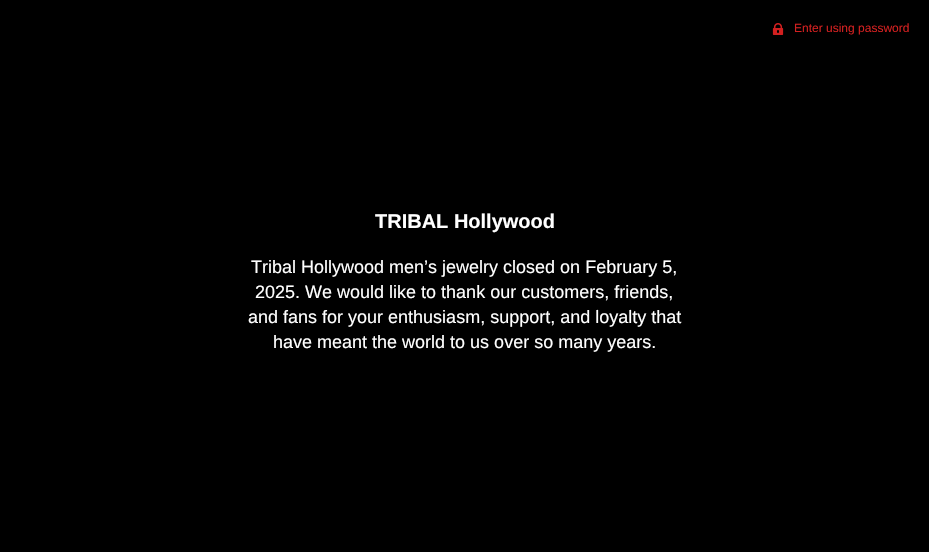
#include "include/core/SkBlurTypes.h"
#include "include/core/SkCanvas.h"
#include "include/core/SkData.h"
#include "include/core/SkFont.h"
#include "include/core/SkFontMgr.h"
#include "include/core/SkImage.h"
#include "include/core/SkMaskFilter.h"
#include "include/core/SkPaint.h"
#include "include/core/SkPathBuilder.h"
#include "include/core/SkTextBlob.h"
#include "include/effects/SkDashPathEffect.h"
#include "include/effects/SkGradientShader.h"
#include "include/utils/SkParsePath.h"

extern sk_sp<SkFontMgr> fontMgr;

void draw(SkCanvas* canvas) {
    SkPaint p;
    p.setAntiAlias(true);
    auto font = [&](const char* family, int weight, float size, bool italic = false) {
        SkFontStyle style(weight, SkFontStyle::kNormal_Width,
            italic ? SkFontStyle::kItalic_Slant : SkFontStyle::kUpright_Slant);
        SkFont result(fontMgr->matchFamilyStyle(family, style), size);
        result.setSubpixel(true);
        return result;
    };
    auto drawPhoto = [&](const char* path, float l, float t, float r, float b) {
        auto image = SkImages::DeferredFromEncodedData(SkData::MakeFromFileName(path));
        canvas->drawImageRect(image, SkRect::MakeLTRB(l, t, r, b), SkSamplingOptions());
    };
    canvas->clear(0xFF000000);
    drawPhoto("media/1.png", 772, 23, 784, 35);
    auto font1 = font("Liberation Sans", 400, 12);
    p.setColor(0xFFD22020);
    canvas->drawString("Enter using password", 794, 32, font1, p);
    auto font2 = font("Liberation Sans", 700, 20);
    p.setColor(0xFFFFFFFF);
    canvas->drawString("TRIBAL Hollywood", 375, 228, font2, p);
    auto font3 = font("Liberation Sans", 400, 18);
    {
        const struct { const char* s; float x, y; } items[] = {
            {"Tribal Hollywood men’s jewelry closed on February 5,", 251, 273},
            {"2025. We would like to thank our customers, friends,", 255, 298},
            {"and fans for your enthusiasm, support, and loyalty that", 248, 323},
            {"have meant the world to us over so many years.", 273, 348},
        };
        for (auto [s, x, y] : items) {
            canvas->drawString(s, x, y, font3, p);
        }
    }
}
